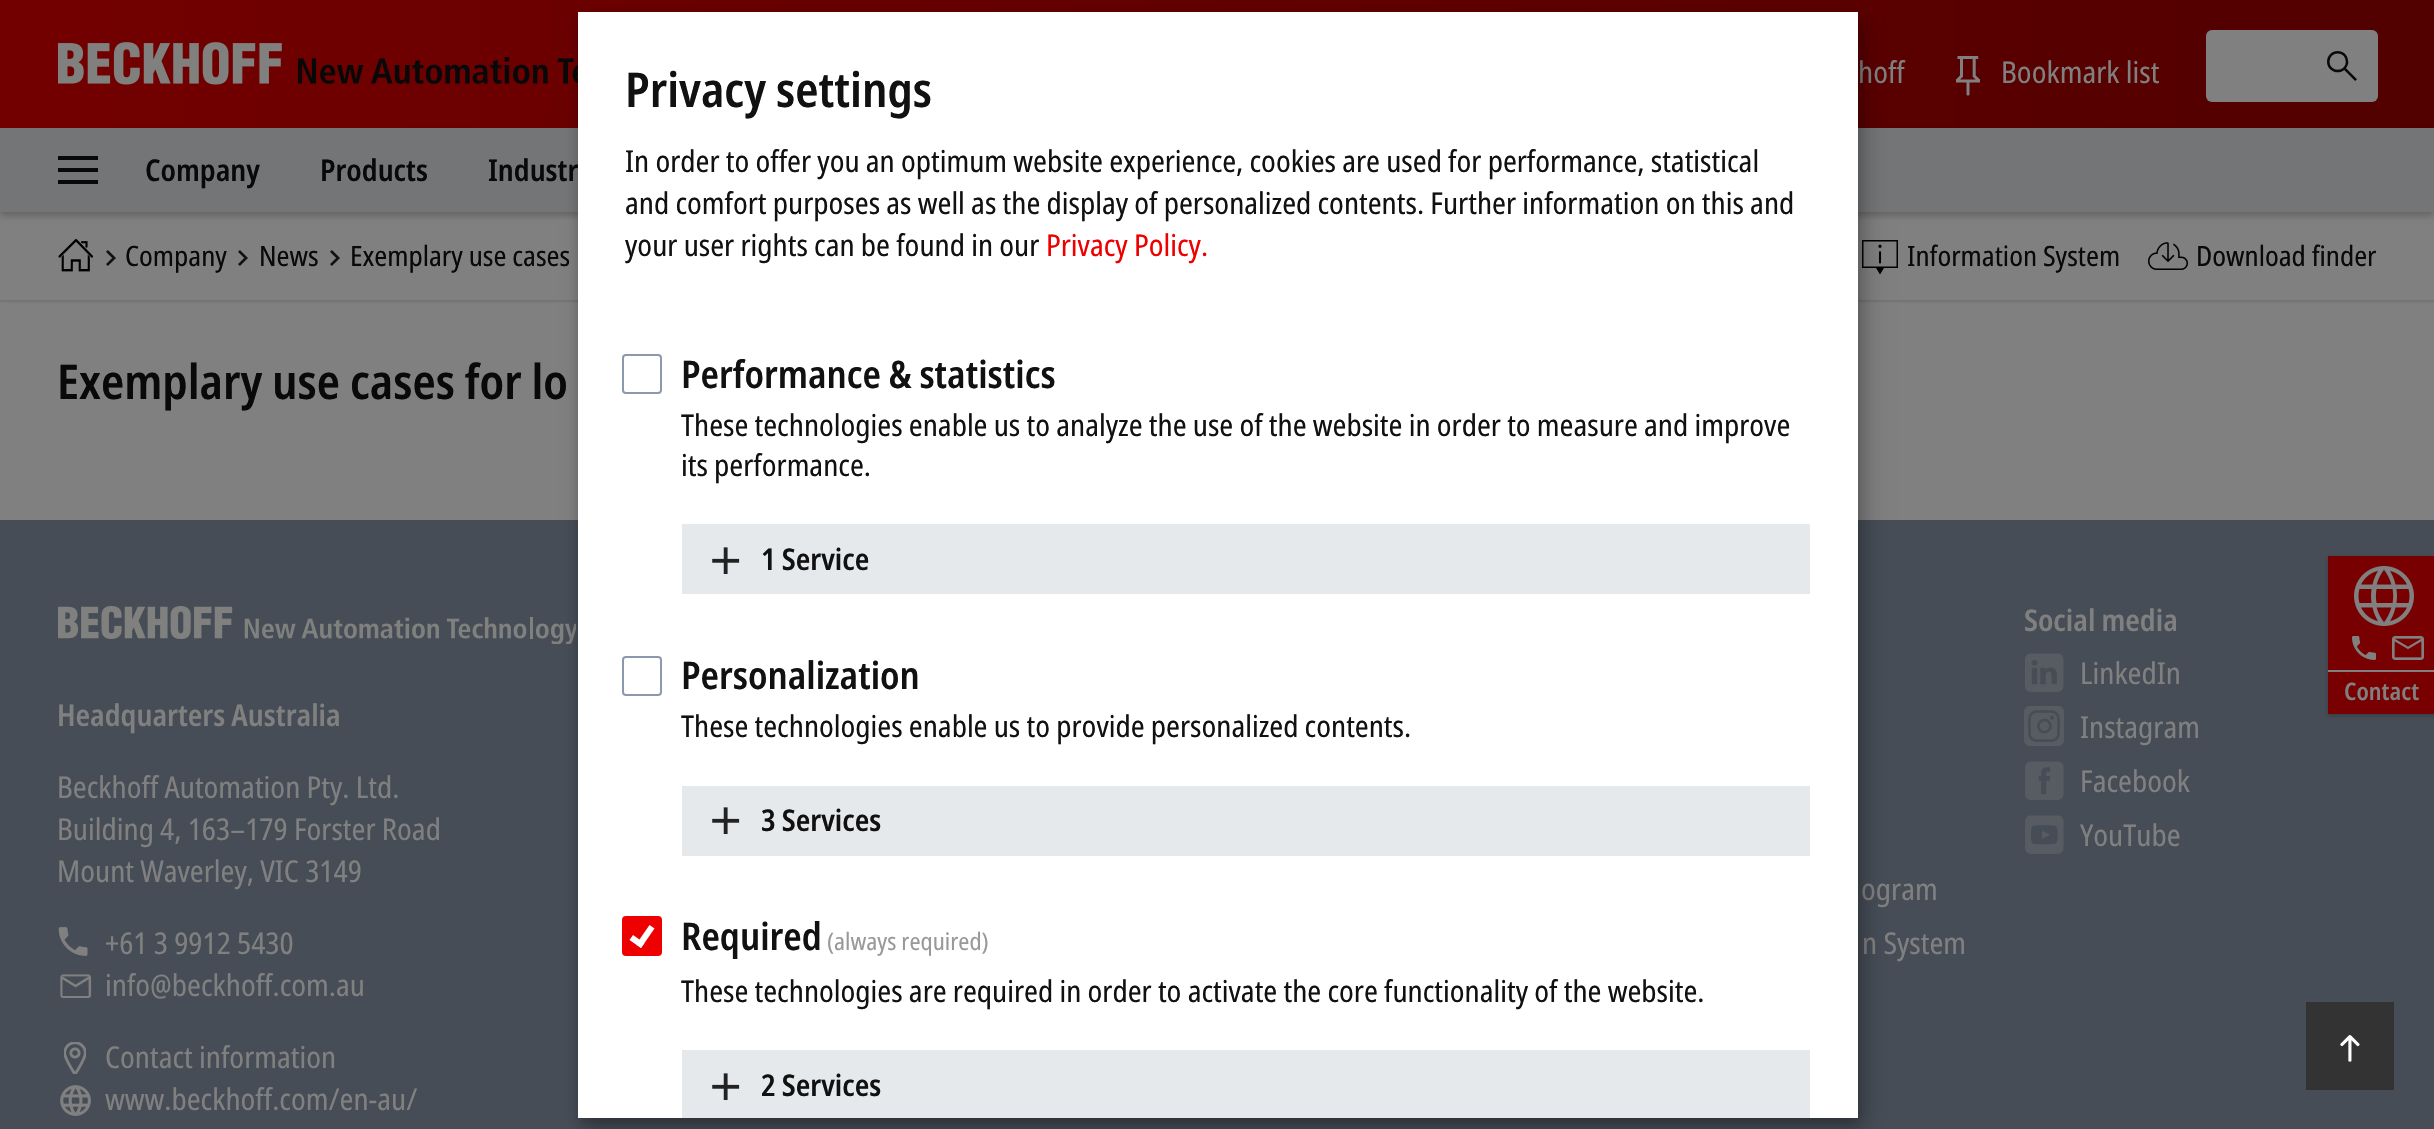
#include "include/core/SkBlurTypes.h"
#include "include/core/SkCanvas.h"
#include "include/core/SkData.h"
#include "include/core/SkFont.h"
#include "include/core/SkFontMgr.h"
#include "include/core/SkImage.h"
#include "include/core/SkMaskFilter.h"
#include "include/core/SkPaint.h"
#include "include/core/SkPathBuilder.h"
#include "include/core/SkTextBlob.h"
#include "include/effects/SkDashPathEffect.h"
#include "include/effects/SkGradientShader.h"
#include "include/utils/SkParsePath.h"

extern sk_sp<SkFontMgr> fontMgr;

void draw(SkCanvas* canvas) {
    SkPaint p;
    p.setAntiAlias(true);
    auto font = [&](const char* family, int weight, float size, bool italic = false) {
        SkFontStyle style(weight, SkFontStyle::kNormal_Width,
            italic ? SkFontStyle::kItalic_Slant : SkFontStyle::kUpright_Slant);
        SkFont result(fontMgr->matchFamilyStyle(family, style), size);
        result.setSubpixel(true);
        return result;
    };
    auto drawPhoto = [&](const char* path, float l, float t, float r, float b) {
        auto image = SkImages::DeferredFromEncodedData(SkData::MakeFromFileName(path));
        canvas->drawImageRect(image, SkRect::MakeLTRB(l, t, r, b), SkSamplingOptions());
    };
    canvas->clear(0xFF808080);
    {
        const SkColor colors[] = {0xFF730000, 0xFF520000};
        const float stops[] = {0, 1};
        const SkPoint ends[] = {{0, 64}, {2434, 64}};
        p.setShader(SkGradientShader::MakeLinear(ends, colors, stops, 2, SkTileMode::kClamp));
        p.setAlpha(255);
    }
    canvas->drawRect(SkRect::MakeLTRB(0, 0, 2434, 128), p);
    drawPhoto("media/1.png", 58, 42, 282, 85);
    drawPhoto("media/2.png", 297, 57, 578, 84);
    auto font1 = font("Noto Sans", 400, 30);
    p.setShader(nullptr);
    p.setColor(0xFF808080);
    canvas->drawString("hoff", 1858, 83, font1, p);
    drawPhoto("media/3.png", 1956, 56, 1980, 96);
    canvas->drawString("Bookmark list", 2001, 83, font1, p);
    canvas->drawRoundRect(SkRect::MakeLTRB(2206, 30, 2378, 102), 6, 6, p);
    drawPhoto("media/4.png", 2327, 51, 2357, 81);
    p.setColor(0x1A000000);
    p.setMaskFilter(SkMaskFilter::MakeBlur(kNormal_SkBlurStyle, 1));
    canvas->drawRect(SkRect::MakeLTRB(0, 214, 2434, 302), p);
    p.setMaskFilter(nullptr);
    p.setColor(0xFF808080);
    canvas->drawRect(SkRect::MakeLTRB(0, 213, 2434, 300), p);
    p.setColor(0x33000000);
    p.setMaskFilter(SkMaskFilter::MakeBlur(kNormal_SkBlurStyle, 3));
    canvas->drawRect(SkRect::MakeLTRB(0, 132, 2434, 216), p);
    p.setMaskFilter(nullptr);
    {
        const struct { float l, t, r, b; SkColor color; } items[] = {
            {0, 128, 2434, 212, 0xFF737576},
            {58, 156, 98, 160, 0xFF090909},
            {58, 168, 98, 172, 0xFF090909},
            {58, 180, 98, 184, 0xFF090909},
        };
        for (auto [l, t, r, b, color] : items) {
            p.setColor(color);
            canvas->drawRect(SkRect::MakeLTRB(l, t, r, b), p);
        }
    }
    auto font2 = font("Noto Sans", 600, 30);
    {
        const struct { const char* s; float x, y; } items[] = {
            {"Company", 145, 181},
            {"Products", 320, 181},
            {"Industr", 488, 181},
        };
        for (auto [s, x, y] : items) {
            canvas->drawString(s, x, y, font2, p);
        }
    }
    drawPhoto("media/5.png", 58, 239, 93, 272);
    drawPhoto("media/6.png", 106, 250, 116, 266);
    auto font3 = font("Noto Sans", 400, 28);
    canvas->drawString("Company", 125, 266, font3, p);
    drawPhoto("media/6.png", 238, 250, 248, 266);
    canvas->drawString("News", 259, 266, font3, p);
    drawPhoto("media/6.png", 330, 250, 340, 266);
    canvas->drawString("Exemplary use cases", 350, 266, font3, p);
    p.setColor(0xFF000000);
    canvas->drawPath(SkPathBuilder().moveTo(1880, 274.5f).lineTo(1876, 268).lineTo(1862, 268).lineTo(1862, 240).lineTo(1898, 240).lineTo(1898, 268).lineTo(1884, 268).close().moveTo(1863.5f, 266.5f).lineTo(1896.5f, 266.5f).lineTo(1896.5f, 241.5f).lineTo(1863.5f, 241.5f).close().moveTo(1863.5f, 266.5f).lineTo(1863.5f, 241.5f).close().detach(), p);
    drawPhoto("media/7.png", 1878, 244, 1882, 264);
    p.setColor(0xFF090909);
    canvas->drawString("Information System", 1907, 266, font3, p);
    drawPhoto("media/8.png", 2148, 242, 2188, 270);
    canvas->drawString("Download finder", 2196, 266, font3, p);
    auto font4 = font("Noto Sans", 600, 48);
    canvas->drawString("Exemplary use cases for lo", 57, 399, font4, p);
    p.setColor(0xFF464D56);
    canvas->drawRect(SkRect::MakeLTRB(0, 520, 2434, 1129), p);
    drawPhoto("media/9.png", 58, 606, 576, 644);
    p.setColor(0xFF808080);
    canvas->drawString("Headquarters Australia", 57, 726, font2, p);
    {
        const struct { const char* s; float x, y; } items[] = {
            {"Beckhoff Automation Pty. Ltd.", 57, 798},
            {"Building 4, 163–179 Forster Road", 57, 840},
            {"Mount Waverley, VIC 3149", 57, 882},
        };
        for (auto [s, x, y] : items) {
            canvas->drawString(s, x, y, font1, p);
        }
    }
    drawPhoto("media/10.png", 58, 927, 88, 956);
    canvas->drawString("+61 3 9912 5430", 105, 954, font1, p);
    drawPhoto("media/11.png", 60, 974, 92, 998);
    canvas->drawString("info@beckhoff.com.au", 105, 996, font1, p);
    drawPhoto("media/12.png", 64, 1042, 86, 1074);
    canvas->drawString("Contact information", 105, 1068, font1, p);
    drawPhoto("media/13.png", 60, 1085, 91, 1116);
    {
        const struct { const char* s; float x, y; } items[] = {
            {"www.beckhoff.com/en-au/", 105, 1110},
            {"ogram", 1861, 900},
            {"n System", 1862, 954},
        };
        for (auto [s, x, y] : items) {
            canvas->drawString(s, x, y, font1, p);
        }
    }
    canvas->drawString("Social media", 2024, 631, font2, p);
    drawPhoto("media/14.png", 2025, 653, 2064, 692);
    canvas->drawString("LinkedIn", 2080, 684, font1, p);
    drawPhoto("media/15.png", 2024, 706, 2064, 746);
    canvas->drawString("Instagram", 2080, 738, font1, p);
    drawPhoto("media/16.png", 2025, 761, 2064, 800);
    canvas->drawString("Facebook", 2080, 792, font1, p);
    drawPhoto("media/17.png", 2025, 815, 2064, 854);
    canvas->drawString("YouTube", 2080, 846, font1, p);
    p.setColor(0xFF333333);
    canvas->drawRect(SkRect::MakeLTRB(2306, 1002, 2394, 1090), p);
    drawPhoto("media/18.png", 2340, 1035, 2360, 1062);
    p.setColor(0x33000000);
    p.setMaskFilter(SkMaskFilter::MakeBlur(kNormal_SkBlurStyle, 2));
    canvas->drawRect(SkRect::MakeLTRB(2328, 558, 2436, 716), p);
    p.setMaskFilter(nullptr);
    p.setColor(0xFF780000);
    canvas->drawRect(SkRect::MakeLTRB(2328, 556, 2434, 714), p);
    drawPhoto("media/19.png", 2352, 566, 2424, 660);
    p.setColor(0xFF808080);
    canvas->drawRect(SkRect::MakeLTRB(2328, 670, 2434, 672), p);
    auto font5 = font("Noto Sans", 600, 24);
    canvas->drawString("Contact", 2344, 700, font5, p);
    p.setColor(0x30000000);
    p.setMaskFilter(SkMaskFilter::MakeBlur(kNormal_SkBlurStyle, 10));
    canvas->drawRect(SkRect::MakeLTRB(588, 22, 1868, 1128), p);
    p.setMaskFilter(nullptr);
    p.setColor(0x33000000);
    p.setMaskFilter(SkMaskFilter::MakeBlur(kNormal_SkBlurStyle, 6));
    canvas->drawRect(SkRect::MakeLTRB(578, 20, 1858, 1126), p);
    p.setMaskFilter(nullptr);
    p.setColor(0xFFFFFFFF);
    canvas->drawRect(SkRect::MakeLTRB(578, 12, 1858, 1118), p);
    p.setColor(0xFF111111);
    canvas->drawString("Privacy settings", 625, 107, font4, p);
    {
        const struct { const char* s; float x, y; } items[] = {
            {"In order to offer you an optimum website experience, cookies are used for performance, statistical", 625, 172},
            {"and comfort purposes as well as the display of personalized contents. Further information on this and", 625, 214},
            {"your user rights can be found in our", 625, 256},
        };
        for (auto [s, x, y] : items) {
            canvas->drawString(s, x, y, font1, p);
        }
    }
    p.setColor(0xFFEF0000);
    canvas->drawString("Privacy Policy.", 1046, 256, font1, p);
    p.setStyle(SkPaint::kStroke_Style);
    p.setStrokeWidth(2);
    p.setColor(0xFF8C99AC);
    canvas->drawRoundRect(SkRect::MakeLTRB(623, 355, 661, 393), 3, 3, p);
    auto font6 = font("Noto Sans", 600, 38);
    p.setStyle(SkPaint::kFill_Style);
    p.setColor(0xFF111111);
    canvas->drawString("Performance & statistics", 681, 388, font6, p);
    canvas->drawString("These technologies enable us to analyze the use of the website in order to measure and improve", 681, 436, font1, p);
    canvas->drawString("its performance.", 681, 476, font1, p);
    p.setColor(0xFFE5E9EC);
    canvas->drawRect(SkRect::MakeLTRB(682, 524, 1810, 594), p);
    drawPhoto("media/20.png", 712, 547, 740, 574);
    p.setColor(0xFF111111);
    canvas->drawString("1 Service", 761, 570, font2, p);
    p.setStyle(SkPaint::kStroke_Style);
    p.setColor(0xFF8C99AC);
    canvas->drawRoundRect(SkRect::MakeLTRB(623, 657, 661, 695), 3, 3, p);
    p.setStyle(SkPaint::kFill_Style);
    p.setColor(0xFF111111);
    canvas->drawString("Personalization", 681, 689, font6, p);
    canvas->drawString("These technologies enable us to provide personalized contents.", 681, 737, font1, p);
    p.setColor(0xFFE5E9EC);
    canvas->drawRect(SkRect::MakeLTRB(682, 786, 1810, 856), p);
    drawPhoto("media/20.png", 712, 807, 740, 834);
    p.setColor(0xFF111111);
    canvas->drawString("3 Services", 761, 831, font2, p);
    p.setColor(0xFFEF0000);
    canvas->drawRoundRect(SkRect::MakeLTRB(623, 917, 661, 955), 3, 3, p);
    p.setStyle(SkPaint::kStroke_Style);
    canvas->drawRoundRect(SkRect::MakeLTRB(623, 917, 661, 955), 3, 3, p);
    p.setStyle(SkPaint::kFill_Style);
    p.setColor(0xFF111111);
    canvas->drawString("Required", 681, 950, font6, p);
    p.setColor(0xFFFFFFFF);
    canvas->drawPath(SkPathBuilder().moveTo(649.5f, 925).lineTo(654.5f, 928.5f).lineTo(641, 948).lineTo(636, 944.5f).close().detach(), p);
    canvas->drawPath(SkPathBuilder().moveTo(633, 935).lineTo(644.5f, 943).lineTo(641, 948).lineTo(629.5f, 940).close().detach(), p);
    auto font7 = font("Noto Sans", 400, 24);
    p.setColor(0xFF999999);
    canvas->drawString("(always required)", 827, 950, font7, p);
    p.setColor(0xFF111111);
    canvas->drawString("These technologies are required in order to activate the core functionality of the website.", 681, 1002, font1, p);
    p.setColor(0xFFE5E9EC);
    canvas->drawRect(SkRect::MakeLTRB(682, 1050, 1810, 1118), p);
    drawPhoto("media/20.png", 712, 1073, 740, 1100);
    p.setColor(0xFF111111);
    canvas->drawString("2 Services", 761, 1096, font2, p);
}
